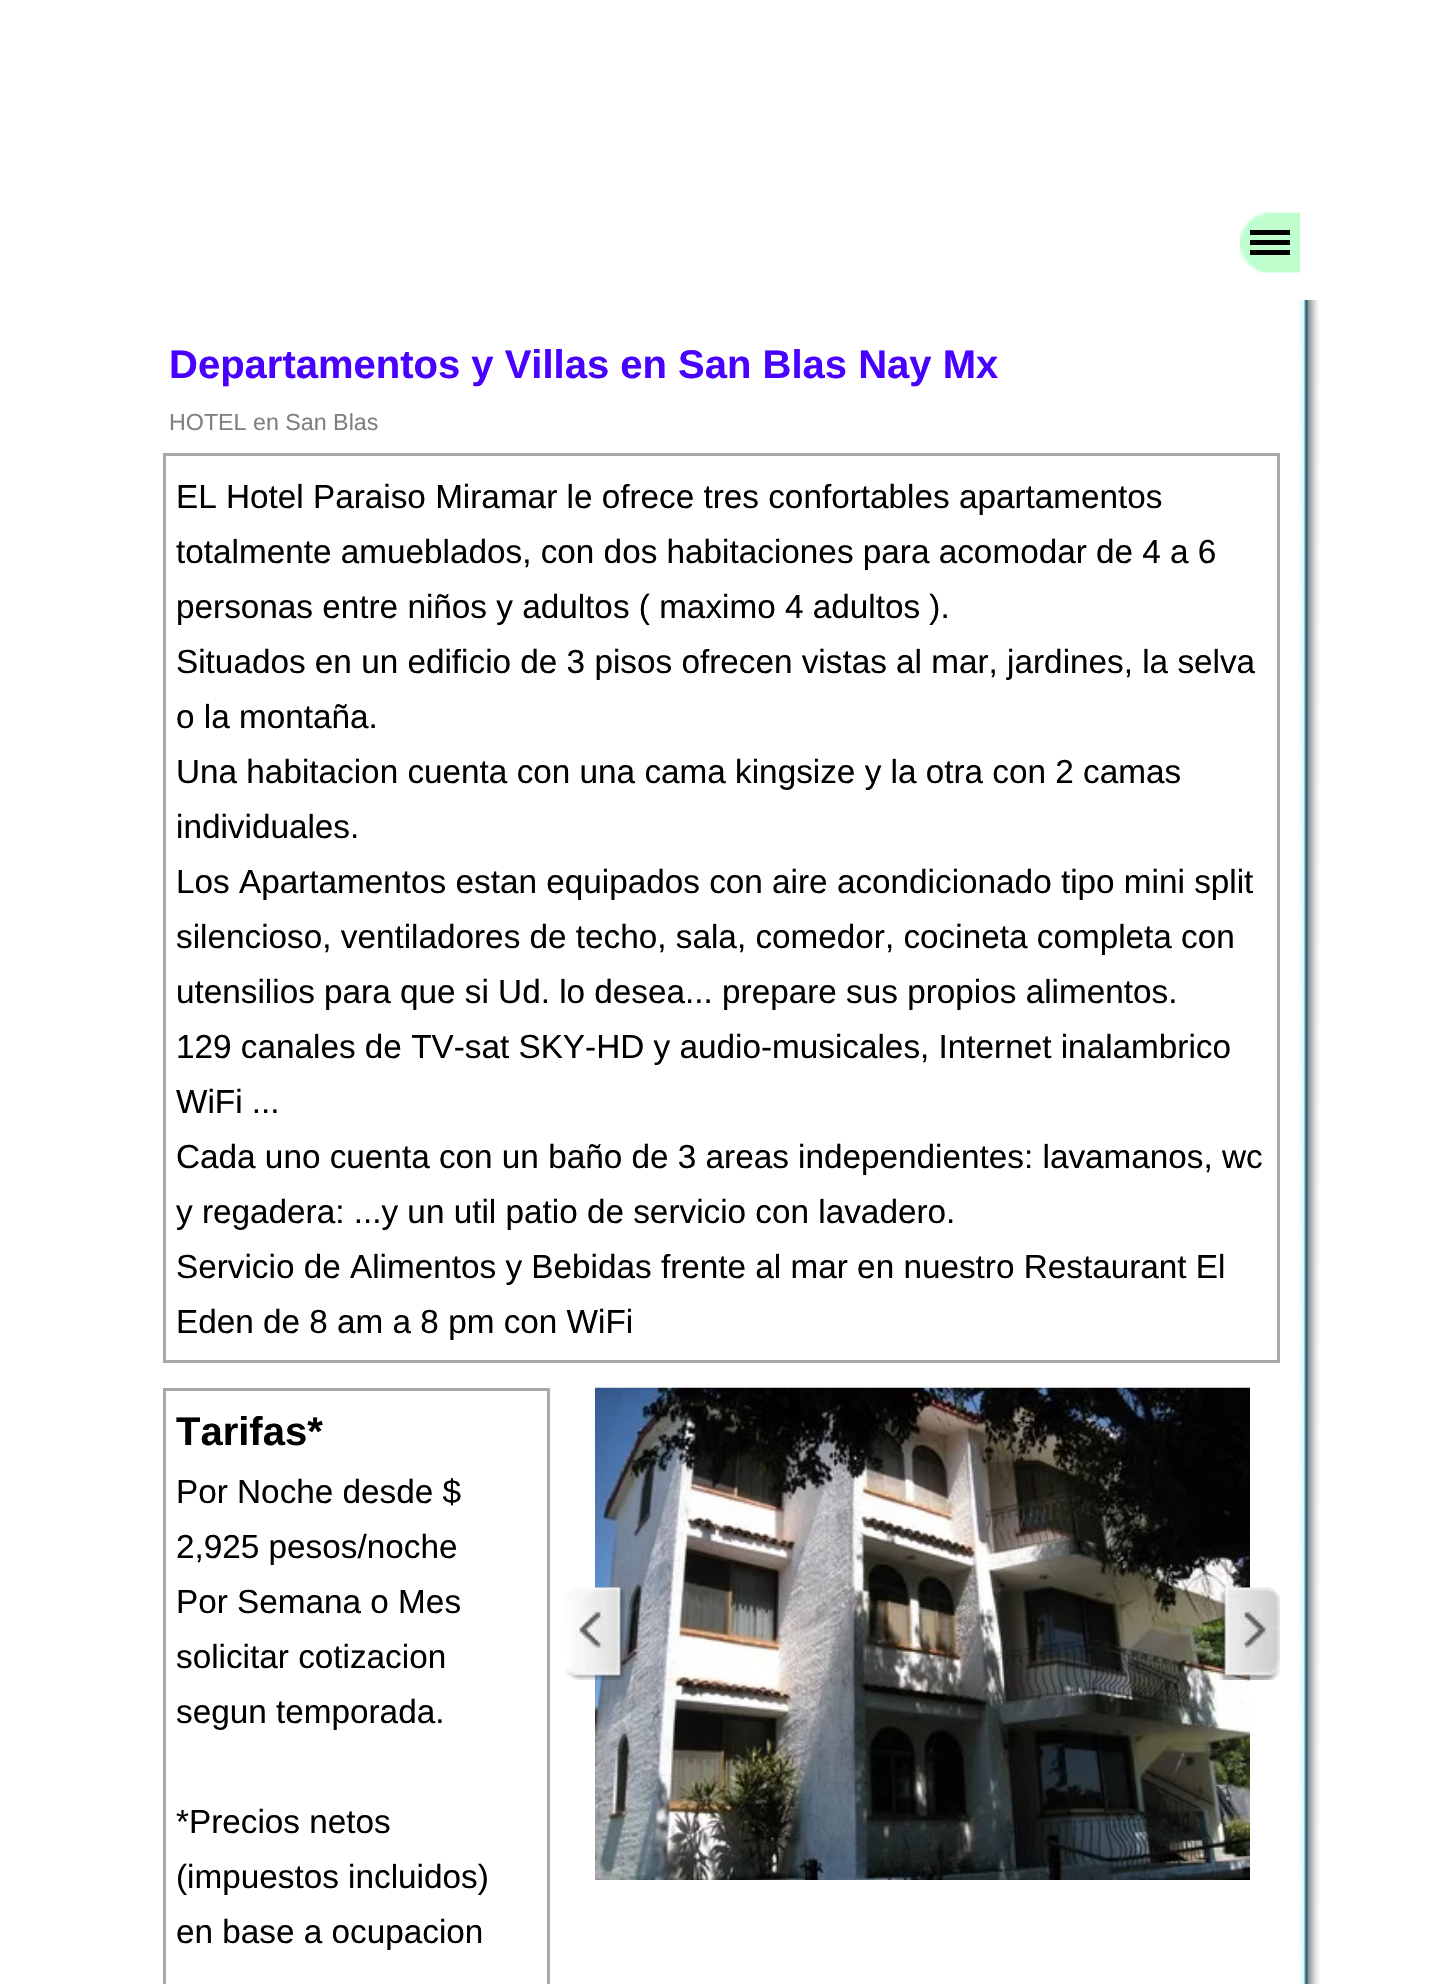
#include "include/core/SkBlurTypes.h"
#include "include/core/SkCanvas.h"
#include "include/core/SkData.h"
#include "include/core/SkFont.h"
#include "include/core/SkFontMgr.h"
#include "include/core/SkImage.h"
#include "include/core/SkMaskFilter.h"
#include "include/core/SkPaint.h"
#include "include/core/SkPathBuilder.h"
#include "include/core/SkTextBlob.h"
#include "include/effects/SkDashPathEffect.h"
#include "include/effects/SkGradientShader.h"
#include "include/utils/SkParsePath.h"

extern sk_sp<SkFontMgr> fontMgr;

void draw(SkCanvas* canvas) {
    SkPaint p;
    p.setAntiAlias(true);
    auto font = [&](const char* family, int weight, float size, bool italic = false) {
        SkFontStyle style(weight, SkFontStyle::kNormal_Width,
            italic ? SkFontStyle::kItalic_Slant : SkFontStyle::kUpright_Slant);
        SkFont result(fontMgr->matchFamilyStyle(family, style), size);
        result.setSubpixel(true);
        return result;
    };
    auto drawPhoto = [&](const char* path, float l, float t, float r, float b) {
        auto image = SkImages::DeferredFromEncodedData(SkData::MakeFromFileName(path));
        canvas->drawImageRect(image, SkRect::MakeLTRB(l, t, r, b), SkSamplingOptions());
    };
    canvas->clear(0xFFFFFFFF);
    drawPhoto("media/1.png", 1240, 212, 1300, 273);
    {
        const struct { float l, t, r, b; SkColor color; } items[] = {
            {1250, 230, 1290, 235, 0xFF000000},
            {1250, 240, 1290, 245, 0xFF000000},
            {1250, 250, 1290, 255, 0xFF000000},
        };
        for (auto [l, t, r, b, color] : items) {
            p.setColor(color);
            canvas->drawRect(SkRect::MakeLTRB(l, t, r, b), p);
        }
    }
    auto font1 = font("Liberation Sans", 700, 40);
    p.setColor(0xFF4800FF);
    canvas->drawString("Departamentos y Villas en San Blas Nay Mx", 169, 378, font1, p);
    auto font2 = font("Liberation Sans", 400, 23.25f);
    p.setColor(0xFF808080);
    canvas->drawString("HOTEL en San Blas", 169, 430, font2, p);
    p.setStyle(SkPaint::kStroke_Style);
    p.setStrokeWidth(3);
    p.setColor(0xFFA8A8A8);
    canvas->drawRect(SkRect::MakeLTRB(164.5f, 454.5f, 1278.5f, 1361.5f), p);
    auto font3 = font("Liberation Sans", 400, 33.3f);
    p.setStyle(SkPaint::kFill_Style);
    p.setColor(0xFF000000);
    {
        const struct { const char* s; float x, y; } items[] = {
            {"EL Hotel Paraiso Miramar le ofrece tres confortables apartamentos", 176, 508},
            {"totalmente amueblados, con dos habitaciones para acomodar de 4 a 6", 176, 563},
            {"personas entre niños y adultos ( maximo 4 adultos ).", 176, 618},
            {"Situados en un edificio de 3 pisos ofrecen vistas al mar, jardines, la selva", 176, 673},
            {"o la montaña.", 176, 728},
            {"Una habitacion cuenta con una cama kingsize y la otra con 2 camas", 176, 783},
            {"individuales.", 176, 838},
            {"Los Apartamentos estan equipados con aire acondicionado tipo mini split", 176, 893},
            {"silencioso, ventiladores de techo, sala, comedor, cocineta completa con", 176, 948},
            {"utensilios para que si Ud. lo desea... prepare sus propios alimentos.", 176, 1003},
            {"129 canales de TV-sat SKY-HD y audio-musicales, Internet inalambrico", 176, 1058},
            {"WiFi ...", 176, 1113},
            {"Cada uno cuenta con un baño de 3 areas independientes: lavamanos, wc", 176, 1168},
            {"y regadera: ...y un util patio de servicio con lavadero.", 176, 1223},
            {"Servicio de Alimentos y Bebidas frente al mar en nuestro Restaurant El", 176, 1278},
            {"Eden de 8 am a 8 pm con WiFi", 176, 1333},
        };
        for (auto [s, x, y] : items) {
            canvas->drawString(s, x, y, font3, p);
        }
    }
    p.setStyle(SkPaint::kStroke_Style);
    p.setColor(0xFFA8A8A8);
    canvas->drawRect(SkRect::MakeLTRB(164.5f, 1389.5f, 548.5f, 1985.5f), p);
    p.setStyle(SkPaint::kFill_Style);
    p.setColor(0xFF000000);
    canvas->drawString("Tarifas*", 176, 1445, font1, p);
    {
        const struct { const char* s; float x, y; } items[] = {
            {"Por Noche desde $", 176, 1503},
            {"2,925 pesos/noche", 176, 1558},
            {"Por Semana o Mes", 176, 1613},
            {"solicitar cotizacion", 176, 1668},
            {"segun temporada.", 176, 1723},
            {"*Precios netos", 176, 1833},
            {"(impuestos incluidos)", 176, 1888},
            {"en base a ocupacion", 176, 1943},
        };
        for (auto [s, x, y] : items) {
            canvas->drawString(s, x, y, font3, p);
        }
    }
    drawPhoto("media/2.png", 595, 1387, 1250, 1880);
    drawPhoto("media/3.png", 565, 1587, 625, 1680);
    drawPhoto("media/4.png", 1220, 1587, 1280, 1680);
    drawPhoto("media/5.png", 1297, 300, 1320, 1984);
}
